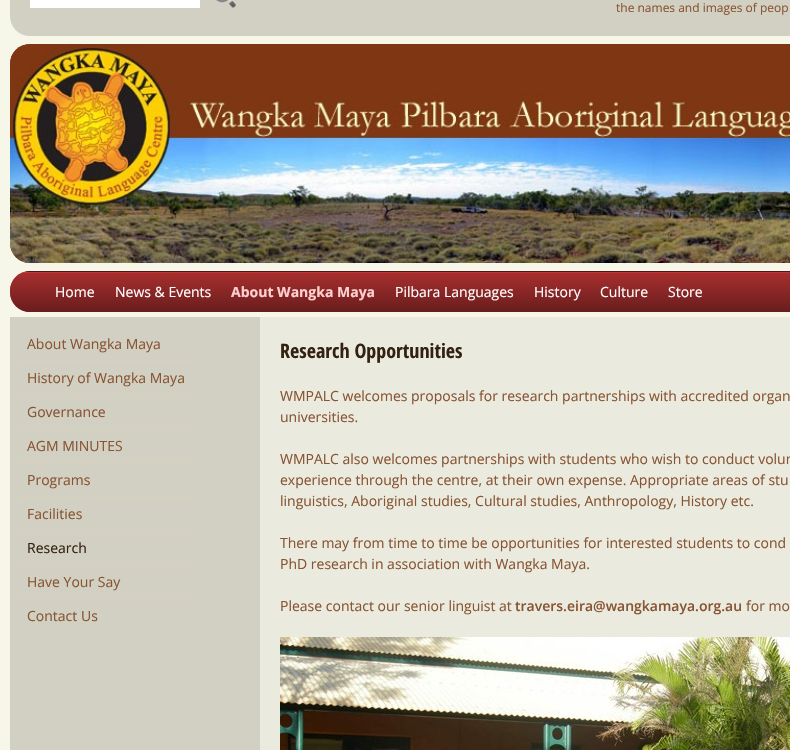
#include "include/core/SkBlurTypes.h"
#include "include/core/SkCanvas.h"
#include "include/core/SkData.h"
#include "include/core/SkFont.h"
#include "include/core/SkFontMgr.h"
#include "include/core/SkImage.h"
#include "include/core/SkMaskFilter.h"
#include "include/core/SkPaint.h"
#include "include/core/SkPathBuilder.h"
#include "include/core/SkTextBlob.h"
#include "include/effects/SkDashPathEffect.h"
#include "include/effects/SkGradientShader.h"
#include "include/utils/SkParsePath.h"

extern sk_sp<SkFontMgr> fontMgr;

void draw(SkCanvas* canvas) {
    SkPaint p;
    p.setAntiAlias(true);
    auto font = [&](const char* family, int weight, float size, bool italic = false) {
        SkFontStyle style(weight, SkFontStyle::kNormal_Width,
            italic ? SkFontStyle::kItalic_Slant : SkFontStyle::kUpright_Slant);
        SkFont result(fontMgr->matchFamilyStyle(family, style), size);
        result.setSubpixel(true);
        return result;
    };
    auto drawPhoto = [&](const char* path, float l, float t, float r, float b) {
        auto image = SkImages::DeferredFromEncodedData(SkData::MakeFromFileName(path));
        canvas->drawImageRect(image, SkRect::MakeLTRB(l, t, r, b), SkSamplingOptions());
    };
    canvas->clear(0xFFF6F6E9);
    p.setColor(0xFFD2D0C2);
    canvas->drawRoundRect(SkRect::MakeLTRB(10, -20, 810, 36), 20, 20, p);
    drawPhoto("media/1.png", 215, 0, 236, 8);
    p.setColor(0xFFFFFFFF);
    canvas->drawRect(SkRect::MakeLTRB(30, 0, 200, 8), p);
    auto font1 = font("Open Sans", 400, 12);
    p.setColor(0xFF885533);
    canvas->drawString("the names and images of peop", 616, 12, font1, p);
    p.setColor(0xFF8B3C15);
    canvas->drawRoundRect(SkRect::MakeLTRB(10, 44, 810, 263), 20, 20, p);
    drawPhoto("media/2.png", 10, 44, 790, 263);
    p.setColor(0xFFA62E2E);
    canvas->drawPath(SkPathBuilder().moveTo(30, 271).lineTo(35, 271).lineTo(35, 312).lineTo(30, 312).cubicTo(19, 312, 10, 303, 10, 292).lineTo(10, 291).cubicTo(10, 280, 19, 271, 30, 271).close().detach(), p);
    drawPhoto("media/3.png", 10, 271, 35, 312);
    drawPhoto("media/4.png", 35, 271, 790, 312);
    auto font2 = font("Open Sans", 400, 14);
    p.setColor(0xFFFFFFFF);
    canvas->drawString("Home", 55, 297, font2, p);
    canvas->drawString("News & Events", 115, 297, font2, p);
    auto font3 = font("Open Sans", 700, 14);
    p.setColor(0xFFFFD0D0);
    canvas->drawString("About Wangka Maya", 231, 297, font3, p);
    p.setColor(0xFFFFFFFF);
    {
        const struct { const char* s; float x, y; } items[] = {
            {"Pilbara Languages", 395, 297},
            {"History", 534, 297},
            {"Culture", 600, 297},
            {"Store", 668, 297},
        };
        for (auto [s, x, y] : items) {
            canvas->drawString(s, x, y, font2, p);
        }
    }
    p.setColor(0xFFD2D0C2);
    canvas->drawRect(SkRect::MakeLTRB(10, 317, 260, 750), p);
    p.setColor(0xFF885533);
    canvas->drawString("About Wangka Maya", 27, 349, font2, p);
    p.setColor(0xFFDAD1BC);
    canvas->drawRect(SkRect::MakeLTRB(20, 360, 192, 361), p);
    p.setColor(0xFF885533);
    canvas->drawString("History of Wangka Maya", 27, 383, font2, p);
    p.setColor(0xFFDAD1BC);
    canvas->drawRect(SkRect::MakeLTRB(20, 394, 192, 395), p);
    p.setColor(0xFF885533);
    canvas->drawString("Governance", 27, 417, font2, p);
    p.setColor(0xFFDAD1BC);
    canvas->drawRect(SkRect::MakeLTRB(20, 428, 192, 429), p);
    p.setColor(0xFF885533);
    canvas->drawString("AGM MINUTES", 27, 451, font2, p);
    p.setColor(0xFFDAD1BC);
    canvas->drawRect(SkRect::MakeLTRB(20, 462, 192, 463), p);
    p.setColor(0xFF885533);
    canvas->drawString("Programs", 27, 485, font2, p);
    p.setColor(0xFFDAD1BC);
    canvas->drawRect(SkRect::MakeLTRB(20, 496, 192, 497), p);
    p.setColor(0xFF885533);
    canvas->drawString("Facilities", 27, 519, font2, p);
    p.setColor(0xFFDAD1BC);
    canvas->drawRect(SkRect::MakeLTRB(20, 530, 192, 531), p);
    p.setColor(0xFF332211);
    canvas->drawString("Research", 27, 553, font2, p);
    p.setColor(0xFFDAD1BC);
    canvas->drawRect(SkRect::MakeLTRB(20, 564, 192, 565), p);
    p.setColor(0xFF885533);
    canvas->drawString("Have Your Say", 27, 587, font2, p);
    p.setColor(0xFFDAD1BC);
    canvas->drawRect(SkRect::MakeLTRB(20, 598, 192, 599), p);
    p.setColor(0xFF885533);
    canvas->drawString("Contact Us", 27, 621, font2, p);
    p.setColor(0xFFEAEADE);
    canvas->drawRect(SkRect::MakeLTRB(260, 317, 790, 750), p);
    auto font4 = font("Open Sans Condensed", 700, 20);
    p.setColor(0xFF332211);
    canvas->drawString("Research Opportunities", 280, 358, font4, p);
    p.setColor(0xFF885533);
    {
        const struct { const char* s; float x, y; } items[] = {
            {"WMPALC welcomes proposals for research partnerships with accredited organ", 280, 401},
            {"universities.", 280, 422},
            {"WMPALC also welcomes partnerships with students who wish to conduct volun", 280, 464},
            {"experience through the centre, at their own expense. Appropriate areas of stu", 280, 485},
            {"linguistics, Aboriginal studies, Cultural studies, Anthropology, History etc.", 280, 506},
            {"There may from time to time be opportunities for interested students to cond", 280, 548},
            {"PhD research in association with Wangka Maya.", 280, 569},
            {"Please contact our senior linguist at", 280, 611},
        };
        for (auto [s, x, y] : items) {
            canvas->drawString(s, x, y, font2, p);
        }
    }
    auto font5 = font("Open Sans", 600, 14);
    canvas->drawString("travers.eira@wangkamaya.org.au", 515, 611, font5, p);
    canvas->drawString("for mo", 746, 611, font2, p);
    drawPhoto("media/5.png", 280, 637, 790, 750);
}
